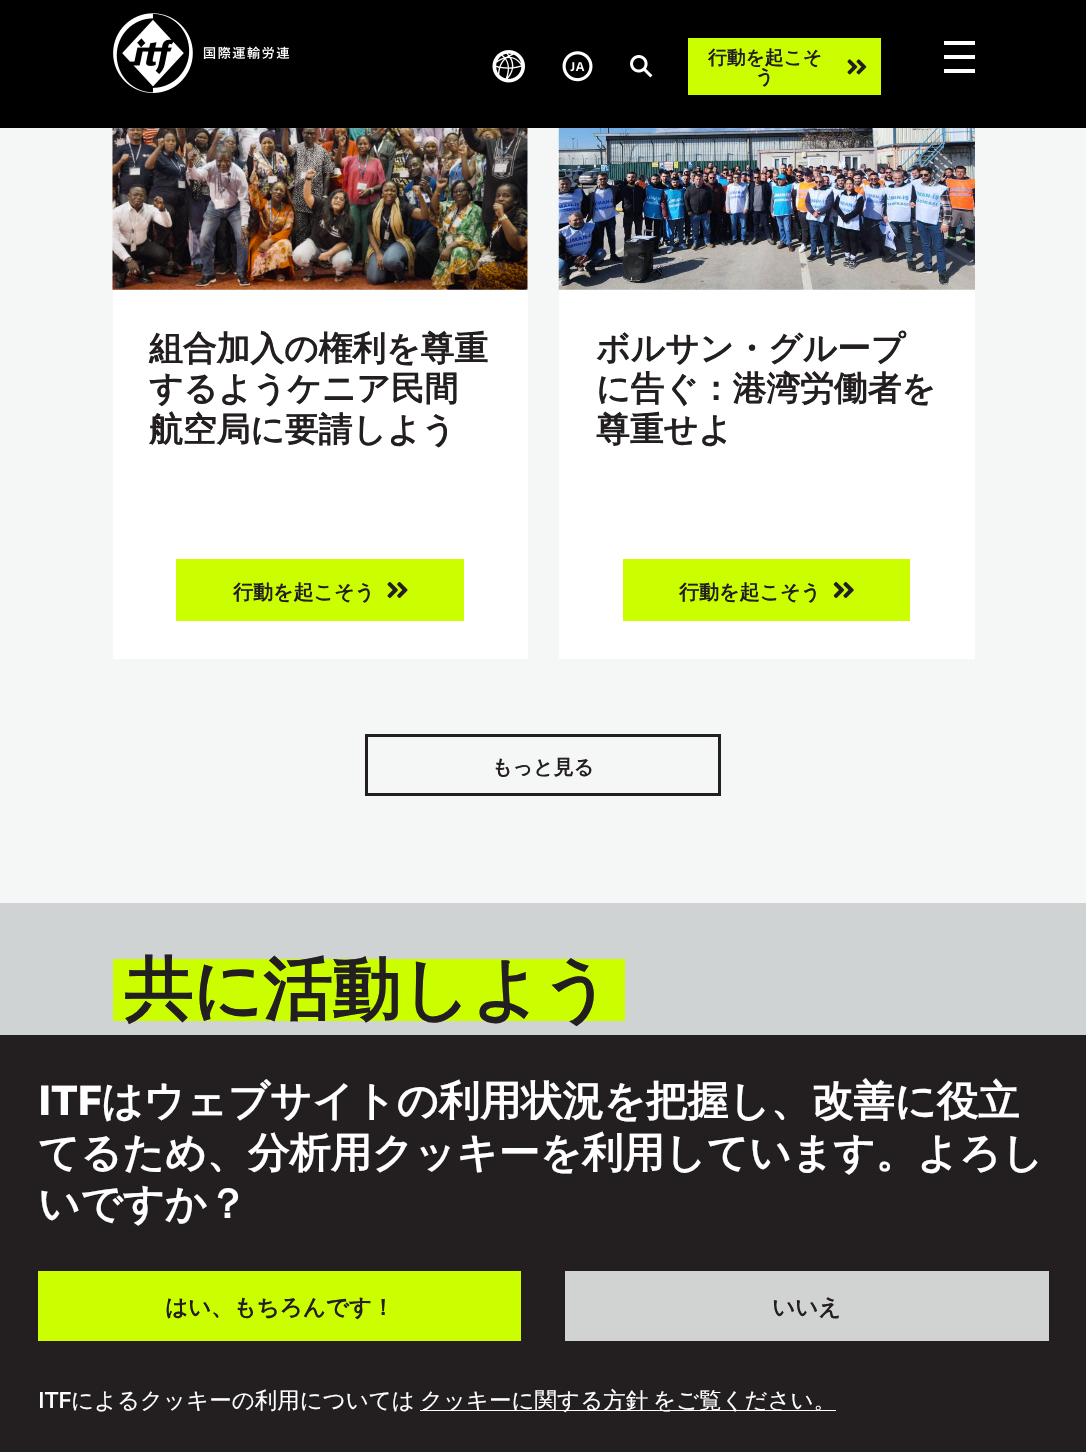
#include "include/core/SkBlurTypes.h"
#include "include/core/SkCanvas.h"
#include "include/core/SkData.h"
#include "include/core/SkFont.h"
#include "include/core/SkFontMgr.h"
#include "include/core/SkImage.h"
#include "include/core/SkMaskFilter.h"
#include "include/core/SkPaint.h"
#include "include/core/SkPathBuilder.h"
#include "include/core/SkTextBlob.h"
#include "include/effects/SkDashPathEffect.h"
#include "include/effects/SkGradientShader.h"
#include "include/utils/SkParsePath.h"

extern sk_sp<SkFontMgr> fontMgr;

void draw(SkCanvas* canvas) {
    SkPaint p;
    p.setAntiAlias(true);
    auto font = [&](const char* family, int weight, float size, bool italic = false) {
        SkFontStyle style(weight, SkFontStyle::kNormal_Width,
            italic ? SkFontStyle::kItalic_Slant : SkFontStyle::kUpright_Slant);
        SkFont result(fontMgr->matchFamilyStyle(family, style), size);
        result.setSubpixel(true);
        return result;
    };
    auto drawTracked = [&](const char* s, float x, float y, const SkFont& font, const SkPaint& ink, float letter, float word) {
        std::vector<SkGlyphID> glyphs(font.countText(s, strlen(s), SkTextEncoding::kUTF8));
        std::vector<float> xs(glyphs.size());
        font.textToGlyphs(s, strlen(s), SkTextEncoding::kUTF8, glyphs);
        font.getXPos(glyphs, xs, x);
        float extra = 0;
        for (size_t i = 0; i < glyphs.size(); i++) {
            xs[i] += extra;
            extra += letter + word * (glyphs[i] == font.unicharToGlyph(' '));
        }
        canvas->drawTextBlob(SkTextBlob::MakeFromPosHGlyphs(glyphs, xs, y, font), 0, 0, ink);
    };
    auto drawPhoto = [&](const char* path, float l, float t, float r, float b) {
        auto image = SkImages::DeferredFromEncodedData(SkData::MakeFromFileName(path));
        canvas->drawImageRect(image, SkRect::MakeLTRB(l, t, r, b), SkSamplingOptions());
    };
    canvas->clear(0xFFF5F6F6);
    p.setColor(0xFF000000);
    canvas->drawRect(SkRect::MakeLTRB(0, 0, 1086, 128), p);
    drawPhoto("media/1.png", 113, 13, 290, 93);
    drawPhoto("media/2.png", 492, 50, 525, 83);
    drawPhoto("media/3.png", 562, 51, 593, 82);
    drawPhoto("media/4.png", 630, 55, 653, 78);
    p.setColor(0xFFCBFF00);
    canvas->drawRect(SkRect::MakeLTRB(688, 38, 881, 95), p);
    auto font1 = font("WenQuanYi Zen Hei", 700, 18.75f);
    p.setColor(0xFF231F20);
    canvas->drawString("行動を起こそ", 708, 64, font1, p);
    drawPhoto("media/5.png", 847, 59, 867, 75);
    canvas->drawString("う", 755, 83, font1, p);
    {
        const struct { float l, t, r, b; SkColor color; } items[] = {
            {944, 41, 975, 45, 0xFFFFFFFF},
            {944, 55, 975, 59, 0xFFFFFFFF},
            {944, 69, 975, 73, 0xFFFFFFFF},
            {113, 128, 528, 659, 0xFFFFFFFF},
        };
        for (auto [l, t, r, b, color] : items) {
            p.setColor(color);
            canvas->drawRect(SkRect::MakeLTRB(l, t, r, b), p);
        }
    }
    drawPhoto("media/6.png", 112, 128, 528, 290);
    auto font2 = font("WenQuanYi Zen Hei", 700, 33.75f);
    p.setColor(0xFF231F20);
    {
        const struct { const char* s; float x, y; } items[] = {
            {"組合加入の権利を尊重", 149, 360},
            {"するようケニア民間", 149, 400},
            {"航空局に要請しよう", 149, 441},
        };
        for (auto [s, x, y] : items) {
            canvas->drawString(s, x, y, font2, p);
        }
    }
    p.setColor(0xFFCBFF00);
    canvas->drawRect(SkRect::MakeLTRB(176, 559, 464, 621), p);
    auto font3 = font("WenQuanYi Zen Hei", 700, 20);
    p.setColor(0xFF231F20);
    canvas->drawString("行動を起こそう", 233, 599, font3, p);
    drawPhoto("media/7.png", 387, 582, 408, 598);
    p.setColor(0xFFFFFFFF);
    canvas->drawRect(SkRect::MakeLTRB(559, 289, 975, 659), p);
    drawPhoto("media/8.png", 558, 128, 975, 290);
    p.setColor(0xFF231F20);
    {
        const struct { const char* s; float x, y; } items[] = {
            {"ボルサン・グループ", 596, 360},
            {"に告ぐ：港湾労働者を", 596, 400},
            {"尊重せよ", 596, 441},
        };
        for (auto [s, x, y] : items) {
            canvas->drawString(s, x, y, font2, p);
        }
    }
    p.setColor(0xFFCBFF00);
    canvas->drawRect(SkRect::MakeLTRB(623, 559, 910, 621), p);
    p.setColor(0xFF231F20);
    canvas->drawString("行動を起こそう", 679, 599, font3, p);
    drawPhoto("media/9.png", 833, 582, 854, 598);
    p.setStyle(SkPaint::kStroke_Style);
    p.setStrokeWidth(3);
    canvas->drawRect(SkRect::MakeLTRB(366.5f, 735.5f, 719.5f, 794.5f), p);
    p.setStyle(SkPaint::kFill_Style);
    canvas->drawString("もっと見る", 492, 774, font3, p);
    p.setColor(0xFFD0D3D3);
    canvas->drawRect(SkRect::MakeLTRB(0, 903, 1086, 1035), p);
    {
        const SkColor colors[] = {0xFFD0D3D3, 0xFFD0D3D3, 0xFFCBFF00, 0xFFCBFF00, 0xFFD0D3D3};
        const float stops[] = {0, 0.25f, 0.25f, 0.85f, 0.85f};
        const SkPoint ends[] = {{369, 933}, {369, 1036}};
        p.setShader(SkGradientShader::MakeLinear(ends, colors, stops, 5, SkTileMode::kClamp));
        p.setAlpha(255);
    }
    canvas->drawRect(SkRect::MakeLTRB(113, 959, 625, 1021), p);
    auto font4 = font("WenQuanYi Zen Hei", 700, 68.75f);
    p.setShader(nullptr);
    p.setColor(0xFF231F20);
    canvas->drawString("共に活動しよう", 124, 1013, font4, p);
    canvas->drawRect(SkRect::MakeLTRB(0, 1035, 1086, 1452), p);
    auto font5 = font("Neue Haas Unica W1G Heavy", 900, 41.25f);
    p.setColor(0xFFFFFFFF);
    canvas->drawString("ITF", 38, 1115, font5, p);
    auto font6 = font("WenQuanYi Zen Hei", 700, 41.25f);
    {
        const struct { const char* s; float x, y; } items[] = {
            {"はウェブサイトの利用状況を把握し、改善に役立", 101, 1115},
            {"てるため、分析用クッキーを利用しています。よろし", 38, 1167},
            {"いですか？", 38, 1218},
        };
        for (auto [s, x, y] : items) {
            canvas->drawString(s, x, y, font6, p);
        }
    }
    p.setColor(0xFFCBFF00);
    canvas->drawRect(SkRect::MakeLTRB(38, 1271, 521, 1341), p);
    auto font7 = font("WenQuanYi Zen Hei", 700, 22.5f);
    p.setColor(0xFF231F20);
    canvas->drawString("はい、もちろんです！", 165, 1315, font7, p);
    p.setColor(0xFFD1D3D3);
    canvas->drawRect(SkRect::MakeLTRB(565, 1271, 1049, 1341), p);
    p.setColor(0xFF231F20);
    canvas->drawString("いいえ", 772, 1315, font7, p);
    auto font8 = font("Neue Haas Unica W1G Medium", 500, 22.5f);
    p.setColor(0xFFFFFFFF);
    canvas->drawString("ITF", 38, 1408, font8, p);
    auto font9 = font("WenQuanYi Zen Hei", 500, 22.5f);
    canvas->drawString("によるクッキーの利用については", 71, 1408, font9, p);
    canvas->drawRect(SkRect::MakeLTRB(420, 1410, 836, 1411), p);
    drawTracked("クッキーに関する方針 をご覧ください。", 420, 1408, font9, p, 0, -2);
}
